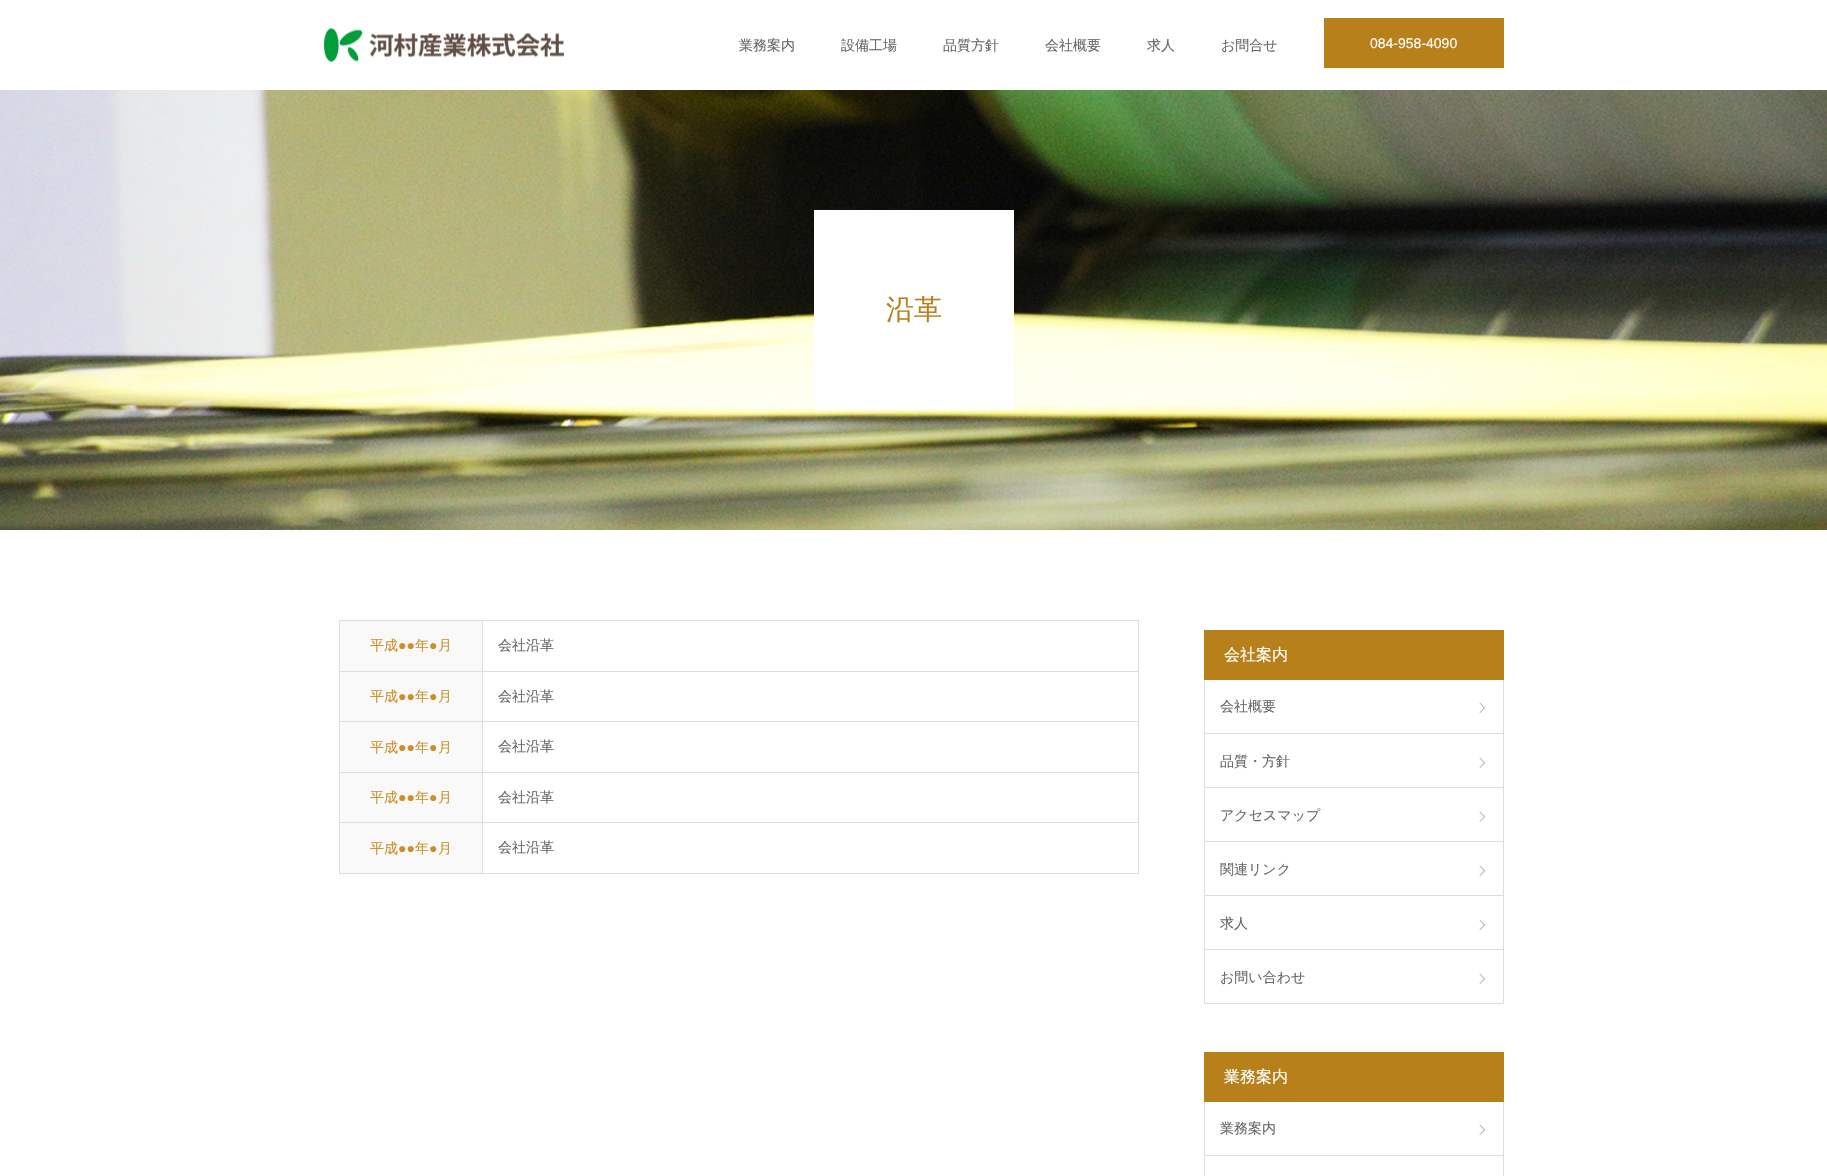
#include "include/core/SkBlurTypes.h"
#include "include/core/SkCanvas.h"
#include "include/core/SkData.h"
#include "include/core/SkFont.h"
#include "include/core/SkFontMgr.h"
#include "include/core/SkImage.h"
#include "include/core/SkMaskFilter.h"
#include "include/core/SkPaint.h"
#include "include/core/SkPathBuilder.h"
#include "include/core/SkTextBlob.h"
#include "include/effects/SkDashPathEffect.h"
#include "include/effects/SkGradientShader.h"
#include "include/utils/SkParsePath.h"

extern sk_sp<SkFontMgr> fontMgr;

void draw(SkCanvas* canvas) {
    SkPaint p;
    p.setAntiAlias(true);
    auto font = [&](const char* family, int weight, float size, bool italic = false) {
        SkFontStyle style(weight, SkFontStyle::kNormal_Width,
            italic ? SkFontStyle::kItalic_Slant : SkFontStyle::kUpright_Slant);
        SkFont result(fontMgr->matchFamilyStyle(family, style), size);
        result.setSubpixel(true);
        return result;
    };
    auto drawPhoto = [&](const char* path, float l, float t, float r, float b) {
        auto image = SkImages::DeferredFromEncodedData(SkData::MakeFromFileName(path));
        canvas->drawImageRect(image, SkRect::MakeLTRB(l, t, r, b), SkSamplingOptions());
    };
    canvas->clear(0xFFFFFFFF);
    drawPhoto("media/1.png", 324, 28, 564, 62);
    auto font1 = font("WenQuanYi Zen Hei", 500, 14);
    p.setColor(0xFF666666);
    {
        const struct { const char* s; float x, y; } items[] = {
            {"業務案内", 739, 50},
            {"設備工場", 841, 50},
            {"品質方針", 943, 50},
            {"会社概要", 1045, 50},
            {"求人", 1147, 50},
            {"お問合せ", 1221, 50},
        };
        for (auto [s, x, y] : items) {
            canvas->drawString(s, x, y, font1, p);
        }
    }
    p.setColor(0xFFB7801B);
    canvas->drawRect(SkRect::MakeLTRB(1324, 18, 1504, 68), p);
    auto font2 = font("Liberation Sans", 400, 14);
    p.setColor(0xFFFFFFFF);
    canvas->drawString("084-958-4090", 1370, 48, font2, p);
    drawPhoto("media/2.png", 0, 90, 1827, 530);
    canvas->drawRect(SkRect::MakeLTRB(814, 210, 1014, 410), p);
    auto font3 = font("WenQuanYi Zen Hei", 500, 28);
    p.setColor(0xFFB7801B);
    canvas->drawString("沿革", 886, 319, font3, p);
    {
        const struct { float l, t, r, b; SkColor color; } items[] = {
            {340, 621, 482, 671, 0xFFF9F9F9},
            {482, 620, 1139, 621, 0xFFDDDDDD},
            {482, 671, 1139, 672, 0xFFDDDDDD},
            {482, 721, 1139, 722, 0xFFDDDDDD},
            {482, 772, 1139, 773, 0xFFDDDDDD},
            {482, 822, 1139, 823, 0xFFDDDDDD},
            {1138, 822, 1139, 874, 0xFFDDDDDD},
            {482, 873, 1139, 874, 0xFFDDDDDD},
            {482, 822, 483, 874, 0xFFDDDDDD},
            {339, 822, 483, 823, 0xFFDDDDDD},
            {482, 772, 483, 823, 0xFFDDDDDD},
            {339, 772, 483, 773, 0xFFDDDDDD},
            {482, 721, 483, 773, 0xFFDDDDDD},
            {339, 721, 483, 722, 0xFFDDDDDD},
            {482, 671, 483, 722, 0xFFDDDDDD},
            {339, 671, 483, 672, 0xFFDDDDDD},
            {482, 620, 483, 672, 0xFFDDDDDD},
            {339, 620, 483, 621, 0xFFDDDDDD},
            {339, 873, 483, 874, 0xFFDDDDDD},
            {339, 822, 340, 874, 0xFFDDDDDD},
            {339, 772, 340, 823, 0xFFDDDDDD},
            {339, 721, 340, 773, 0xFFDDDDDD},
            {339, 671, 340, 722, 0xFFDDDDDD},
            {339, 620, 340, 672, 0xFFDDDDDD},
        };
        for (auto [l, t, r, b, color] : items) {
            p.setColor(color);
            canvas->drawRect(SkRect::MakeLTRB(l, t, r, b), p);
        }
    }
    p.setColor(0xFFCC902A);
    canvas->drawString("平成", 370, 650, font1, p);
    canvas->drawString("●●", 398, 650, font2, p);
    canvas->drawString("年", 415, 650, font1, p);
    canvas->drawString("●", 429, 650, font2, p);
    canvas->drawString("月", 438, 650, font1, p);
    {
        const struct { float l, t, r, b; SkColor color; } items[] = {
            {1138, 772, 1139, 823, 0xFFDDDDDD},
            {1138, 721, 1139, 773, 0xFFDDDDDD},
            {1138, 671, 1139, 722, 0xFFDDDDDD},
            {1138, 620, 1139, 672, 0xFFDDDDDD},
        };
        for (auto [l, t, r, b, color] : items) {
            p.setColor(color);
            canvas->drawRect(SkRect::MakeLTRB(l, t, r, b), p);
        }
    }
    p.setColor(0xFF666666);
    canvas->drawString("会社沿革", 498, 650, font1, p);
    p.setColor(0xFFF9F9F9);
    canvas->drawRect(SkRect::MakeLTRB(340, 672, 482, 721), p);
    p.setColor(0xFFCC902A);
    canvas->drawString("平成", 370, 701, font1, p);
    canvas->drawString("●●", 398, 701, font2, p);
    canvas->drawString("年", 415, 701, font1, p);
    canvas->drawString("●", 429, 701, font2, p);
    canvas->drawString("月", 438, 701, font1, p);
    p.setColor(0xFF666666);
    canvas->drawString("会社沿革", 498, 701, font1, p);
    p.setColor(0xFFF9F9F9);
    canvas->drawRect(SkRect::MakeLTRB(340, 722, 482, 772), p);
    p.setColor(0xFFCC902A);
    canvas->drawString("平成", 370, 752, font1, p);
    canvas->drawString("●●", 398, 752, font2, p);
    canvas->drawString("年", 415, 752, font1, p);
    canvas->drawString("●", 429, 752, font2, p);
    canvas->drawString("月", 438, 752, font1, p);
    p.setColor(0xFF666666);
    canvas->drawString("会社沿革", 498, 751, font1, p);
    p.setColor(0xFFF9F9F9);
    canvas->drawRect(SkRect::MakeLTRB(340, 773, 482, 822), p);
    p.setColor(0xFFCC902A);
    canvas->drawString("平成", 370, 802, font1, p);
    canvas->drawString("●●", 398, 802, font2, p);
    canvas->drawString("年", 415, 802, font1, p);
    canvas->drawString("●", 429, 802, font2, p);
    canvas->drawString("月", 438, 802, font1, p);
    p.setColor(0xFF666666);
    canvas->drawString("会社沿革", 498, 802, font1, p);
    p.setColor(0xFFF9F9F9);
    canvas->drawRect(SkRect::MakeLTRB(340, 823, 482, 873), p);
    p.setColor(0xFFCC902A);
    canvas->drawString("平成", 370, 853, font1, p);
    canvas->drawString("●●", 398, 853, font2, p);
    canvas->drawString("年", 415, 853, font1, p);
    canvas->drawString("●", 429, 853, font2, p);
    canvas->drawString("月", 438, 853, font1, p);
    p.setColor(0xFF666666);
    canvas->drawString("会社沿革", 498, 852, font1, p);
    {
        const struct { float l, t, r, b; SkColor color; } items[] = {
            {1503, 679, 1504, 734, 0xFFDDDDDD},
            {1204, 679, 1205, 734, 0xFFDDDDDD},
            {1204, 630, 1504, 680, 0xFFB7801B},
        };
        for (auto [l, t, r, b, color] : items) {
            p.setColor(color);
            canvas->drawRect(SkRect::MakeLTRB(l, t, r, b), p);
        }
    }
    auto font4 = font("WenQuanYi Zen Hei", 500, 16);
    p.setColor(0xFFFFFFFF);
    canvas->drawString("会社案内", 1224, 660, font4, p);
    p.setColor(0xFF666666);
    canvas->drawString("会社概要", 1220, 711, font1, p);
    drawPhoto("media/3.png", 1479, 702, 1485, 713);
    p.setStyle(SkPaint::kStroke_Style);
    p.setStrokeWidth(1);
    p.setColor(0xFFDDDDDD);
    canvas->drawRect(SkRect::MakeLTRB(1204.5f, 733.5f, 1503.5f, 787.5f), p);
    p.setStyle(SkPaint::kFill_Style);
    p.setColor(0xFF666666);
    canvas->drawString("品質・方針", 1220, 766, font1, p);
    drawPhoto("media/3.png", 1479, 757, 1485, 768);
    p.setStyle(SkPaint::kStroke_Style);
    p.setColor(0xFFDDDDDD);
    canvas->drawRect(SkRect::MakeLTRB(1204.5f, 787.5f, 1503.5f, 841.5f), p);
    p.setStyle(SkPaint::kFill_Style);
    p.setColor(0xFF666666);
    canvas->drawString("アクセスマップ", 1220, 820, font1, p);
    drawPhoto("media/3.png", 1479, 811, 1485, 822);
    p.setStyle(SkPaint::kStroke_Style);
    p.setColor(0xFFDDDDDD);
    canvas->drawRect(SkRect::MakeLTRB(1204.5f, 841.5f, 1503.5f, 895.5f), p);
    p.setStyle(SkPaint::kFill_Style);
    p.setColor(0xFF666666);
    canvas->drawString("関連リンク", 1220, 874, font1, p);
    drawPhoto("media/3.png", 1479, 865, 1485, 876);
    p.setStyle(SkPaint::kStroke_Style);
    p.setColor(0xFFDDDDDD);
    canvas->drawRect(SkRect::MakeLTRB(1204.5f, 895.5f, 1503.5f, 949.5f), p);
    p.setStyle(SkPaint::kFill_Style);
    p.setColor(0xFF666666);
    canvas->drawString("求人", 1220, 928, font1, p);
    drawPhoto("media/3.png", 1479, 919, 1485, 930);
    p.setStyle(SkPaint::kStroke_Style);
    p.setColor(0xFFDDDDDD);
    canvas->drawRect(SkRect::MakeLTRB(1204.5f, 949.5f, 1503.5f, 1003.5f), p);
    p.setStyle(SkPaint::kFill_Style);
    p.setColor(0xFF666666);
    canvas->drawString("お問い合わせ", 1220, 982, font1, p);
    drawPhoto("media/3.png", 1479, 973, 1485, 984);
    {
        const struct { float l, t, r, b; SkColor color; } items[] = {
            {1503, 1101, 1504, 1156, 0xFFDDDDDD},
            {1204, 1101, 1205, 1156, 0xFFDDDDDD},
            {1204, 1052, 1504, 1102, 0xFFB7801B},
        };
        for (auto [l, t, r, b, color] : items) {
            p.setColor(color);
            canvas->drawRect(SkRect::MakeLTRB(l, t, r, b), p);
        }
    }
    p.setColor(0xFFFFFFFF);
    canvas->drawString("業務案内", 1224, 1082, font4, p);
    p.setColor(0xFF666666);
    canvas->drawString("業務案内", 1220, 1133, font1, p);
    drawPhoto("media/3.png", 1479, 1124, 1485, 1135);
    p.setStyle(SkPaint::kStroke_Style);
    p.setColor(0xFFDDDDDD);
    canvas->drawRect(SkRect::MakeLTRB(1204.5f, 1155.5f, 1503.5f, 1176.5f), p);
}
